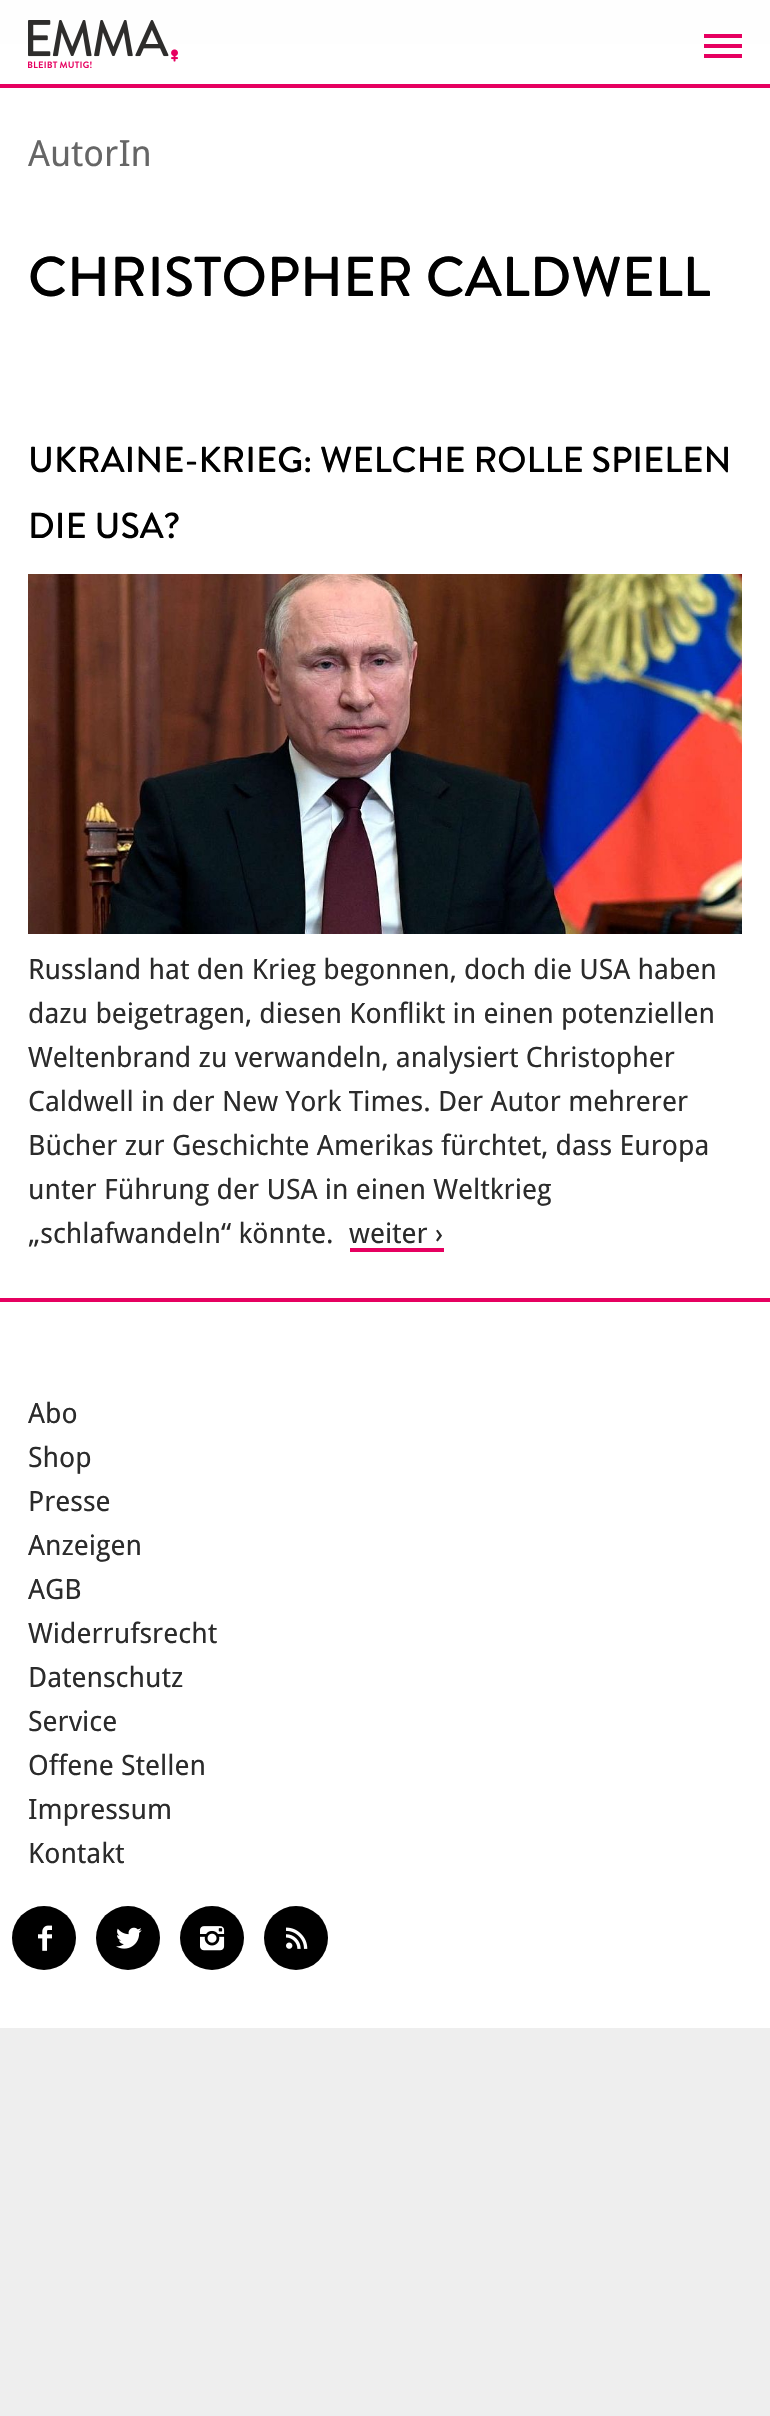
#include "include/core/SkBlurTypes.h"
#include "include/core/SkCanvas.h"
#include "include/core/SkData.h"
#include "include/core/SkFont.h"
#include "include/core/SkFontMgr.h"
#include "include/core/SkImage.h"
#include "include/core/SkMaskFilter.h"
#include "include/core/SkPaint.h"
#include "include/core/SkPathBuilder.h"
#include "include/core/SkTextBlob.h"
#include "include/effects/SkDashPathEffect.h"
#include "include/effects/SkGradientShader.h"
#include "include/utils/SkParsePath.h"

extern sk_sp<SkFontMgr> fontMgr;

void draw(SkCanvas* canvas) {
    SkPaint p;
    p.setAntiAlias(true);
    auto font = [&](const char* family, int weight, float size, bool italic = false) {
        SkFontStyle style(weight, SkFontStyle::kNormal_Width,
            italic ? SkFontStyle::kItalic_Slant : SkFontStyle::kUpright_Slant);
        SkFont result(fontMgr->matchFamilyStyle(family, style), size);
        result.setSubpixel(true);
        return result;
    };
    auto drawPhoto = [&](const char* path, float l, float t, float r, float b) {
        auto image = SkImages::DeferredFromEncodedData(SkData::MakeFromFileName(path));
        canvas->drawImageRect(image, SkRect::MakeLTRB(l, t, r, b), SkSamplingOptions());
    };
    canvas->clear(0xFFEEEEEE);
    {
        const struct { float l, t, r, b; SkColor color; } items[] = {
            {0, 0, 770, 44, 0xFFFEFEFE},
            {0, 88, 770, 1298, 0xFFFFFFFF},
            {0, 44, 770, 84, 0xFFFFFFFF},
            {0, 84, 770, 88, 0xFFE60060},
        };
        for (auto [l, t, r, b, color] : items) {
            p.setColor(color);
            canvas->drawRect(SkRect::MakeLTRB(l, t, r, b), p);
        }
    }
    drawPhoto("media/1.png", 28, 20, 178, 68);
    {
        const struct { float l, t, r, b; SkColor color; } items[] = {
            {704, 44, 742, 48, 0xFFE60060},
            {704, 34, 742, 38, 0xFFE60060},
            {704, 54, 742, 58, 0xFFE60060},
        };
        for (auto [l, t, r, b, color] : items) {
            p.setColor(color);
            canvas->drawRect(SkRect::MakeLTRB(l, t, r, b), p);
        }
    }
    auto font1 = font("Droid Sans", 400, 36);
    p.setColor(0xFF666666);
    canvas->drawString("AutorIn", 28, 166, font1, p);
    auto font2 = font("Brandon Grotesque", 500, 56);
    p.setColor(0xFF000000);
    canvas->drawString("CHRISTOPHER CALDWELL", 28, 296, font2, p);
    auto font3 = font("Brandon Grotesque", 500, 36);
    canvas->drawString("UKRAINE-KRIEG: WELCHE ROLLE SPIELEN", 28, 472, font3, p);
    canvas->drawString("DIE USA?", 28, 538, font3, p);
    drawPhoto("media/2.png", 28, 574, 742, 934);
    auto font4 = font("Droid Sans", 400, 28);
    p.setColor(0xFF2B2B2B);
    {
        const struct { const char* s; float x, y; } items[] = {
            {"Russland hat den Krieg begonnen, doch die USA haben", 28, 979},
            {"dazu beigetragen, diesen Konflikt in einen potenziellen", 28, 1023},
            {"Weltenbrand zu verwandeln, analysiert Christopher", 28, 1067},
            {"Caldwell in der New York Times. Der Autor mehrerer", 28, 1111},
            {"Bücher zur Geschichte Amerikas fürchtet, dass Europa", 28, 1155},
            {"unter Führung der USA in einen Weltkrieg", 28, 1199},
            {"„schlafwandeln“ könnte.", 28, 1243},
            {"weiter ›", 349, 1243},
        };
        for (auto [s, x, y] : items) {
            canvas->drawString(s, x, y, font4, p);
        }
    }
    {
        const struct { float l, t, r, b; SkColor color; } items[] = {
            {350, 1248, 444, 1252, 0xFFE60060},
            {0, 1302, 770, 2028, 0xFFFFFFFF},
            {0, 1298, 770, 1302, 0xFFE60060},
        };
        for (auto [l, t, r, b, color] : items) {
            p.setColor(color);
            canvas->drawRect(SkRect::MakeLTRB(l, t, r, b), p);
        }
    }
    p.setColor(0xFF2B2B2B);
    {
        const struct { const char* s; float x, y; } items[] = {
            {"Abo", 28, 1423},
            {"Shop", 28, 1467},
            {"Presse", 28, 1511},
            {"Anzeigen", 28, 1555},
            {"AGB", 28, 1599},
            {"Widerrufsrecht", 28, 1643},
            {"Datenschutz", 28, 1687},
            {"Service", 28, 1731},
            {"Offene Stellen", 28, 1775},
            {"Impressum", 28, 1819},
            {"Kontakt", 28, 1863},
        };
        for (auto [s, x, y] : items) {
            canvas->drawString(s, x, y, font4, p);
        }
    }
    p.setColor(0xFF000000);
    canvas->drawCircle(44, 1938, 32, p);
    drawPhoto("media/3.png", 38, 1925, 52, 1951);
    canvas->drawCircle(128, 1938, 32, p);
    drawPhoto("media/4.png", 116, 1927, 142, 1949);
    canvas->drawCircle(212, 1938, 32, p);
    drawPhoto("media/5.png", 200, 1926, 225, 1951);
    canvas->drawCircle(296, 1938, 32, p);
    drawPhoto("media/6.png", 286, 1927, 308, 1949);
}
